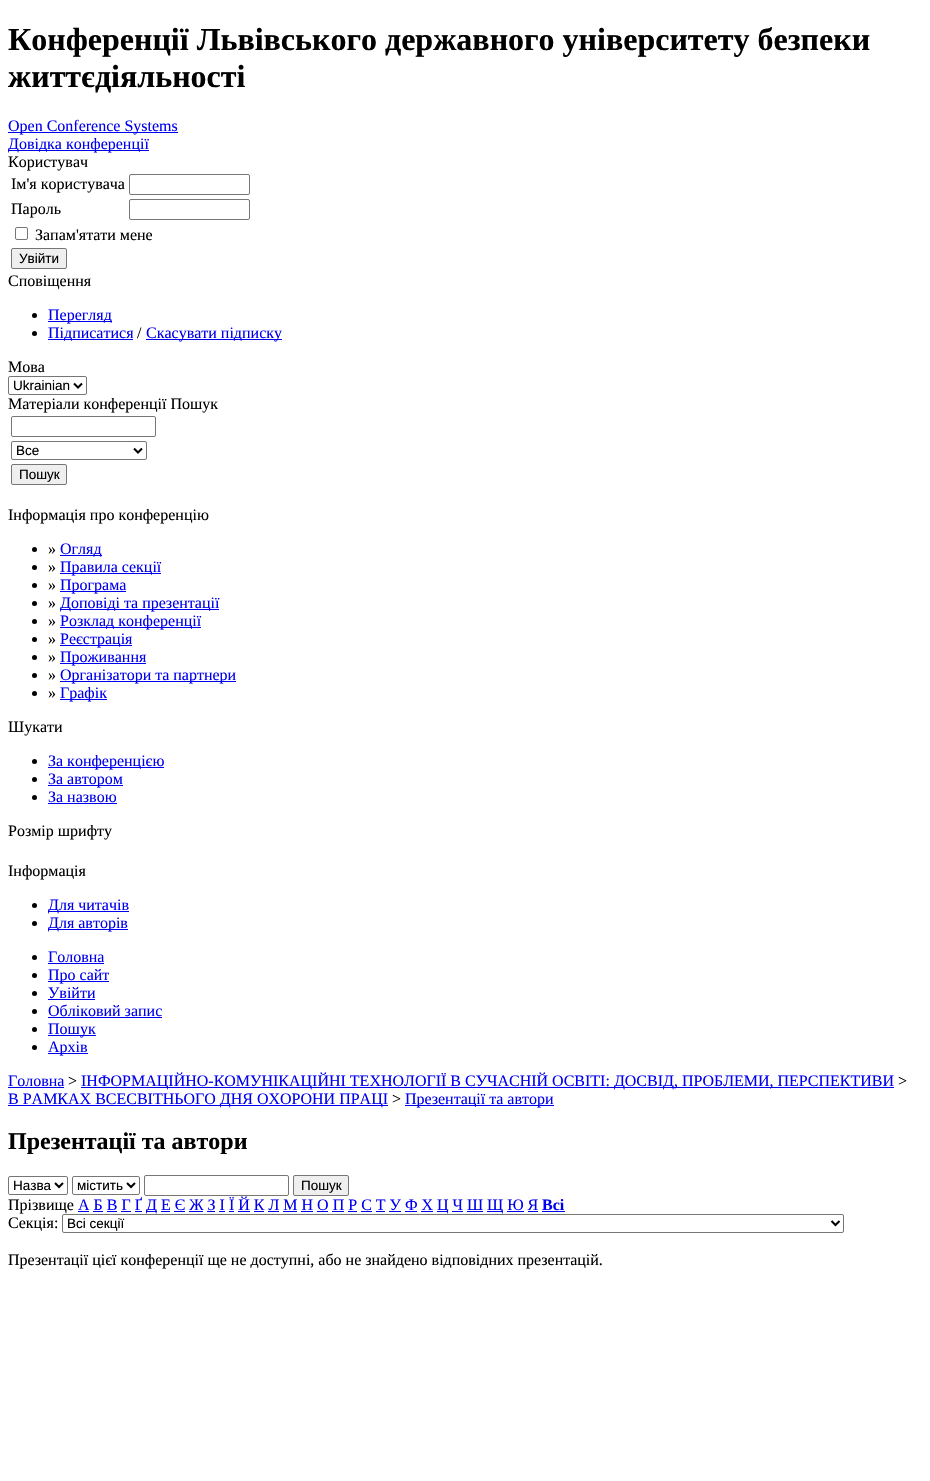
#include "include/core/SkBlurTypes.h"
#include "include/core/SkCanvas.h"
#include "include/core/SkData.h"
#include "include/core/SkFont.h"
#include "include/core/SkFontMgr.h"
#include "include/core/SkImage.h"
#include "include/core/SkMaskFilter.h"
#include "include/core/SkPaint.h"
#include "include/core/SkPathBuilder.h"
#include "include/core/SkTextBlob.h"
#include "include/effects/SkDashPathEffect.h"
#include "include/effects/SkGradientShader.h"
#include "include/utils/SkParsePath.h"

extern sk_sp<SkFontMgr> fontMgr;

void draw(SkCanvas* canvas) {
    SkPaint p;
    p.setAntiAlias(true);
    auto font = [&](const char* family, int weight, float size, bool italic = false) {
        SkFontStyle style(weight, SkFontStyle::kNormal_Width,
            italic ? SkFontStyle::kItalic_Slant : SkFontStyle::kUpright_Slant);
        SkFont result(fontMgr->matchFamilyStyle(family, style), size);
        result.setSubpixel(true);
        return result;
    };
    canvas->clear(0xFFFFFFFF);
    auto font1 = font("Liberation Serif", 700, 32);
    p.setColor(0xFF000000);
    canvas->drawString("Конференції Львівського державного університету безпеки", 8, 50, font1, p);
    canvas->drawString("життєдіяльності", 8, 87, font1, p);
    p.setColor(0xFF0000EE);
    canvas->drawRect(SkRect::MakeLTRB(8, 132, 178, 133), p);
    auto font2 = font("Liberation Serif", 400, 16);
    canvas->drawString("Open Conference Systems", 8, 131, font2, p);
    canvas->drawRect(SkRect::MakeLTRB(8, 150, 149, 151), p);
    canvas->drawString("Довідка конференції", 8, 149, font2, p);
    p.setColor(0xFF000000);
    canvas->drawString("Користувач", 8, 167, font2, p);
    canvas->drawString("Ім'я користувача", 11, 189, font2, p);
    p.setStyle(SkPaint::kStroke_Style);
    p.setStrokeWidth(1);
    p.setColor(0xFF767676);
    canvas->drawRoundRect(SkRect::MakeLTRB(129.5f, 174.5f, 249.5f, 194.5f), 1.5f, 1.5f, p);
    p.setStyle(SkPaint::kFill_Style);
    p.setColor(0xFF000000);
    canvas->drawString("Пароль", 11, 214, font2, p);
    p.setStyle(SkPaint::kStroke_Style);
    p.setColor(0xFF767676);
    canvas->drawRoundRect(SkRect::MakeLTRB(129.5f, 199.5f, 249.5f, 219.5f), 1.5f, 1.5f, p);
    canvas->drawRoundRect(SkRect::MakeLTRB(15.5f, 227.5f, 27.5f, 239.5f), 1.5f, 1.5f, p);
    p.setStyle(SkPaint::kFill_Style);
    p.setColor(0xFF000000);
    canvas->drawString("Запам'ятати мене", 35, 240, font2, p);
    p.setColor(0xFFEFEFEF);
    canvas->drawRoundRect(SkRect::MakeLTRB(11.5f, 248.5f, 66.5f, 268.5f), 1.5f, 1.5f, p);
    p.setStyle(SkPaint::kStroke_Style);
    p.setColor(0xFF767676);
    canvas->drawRoundRect(SkRect::MakeLTRB(11.5f, 248.5f, 66.5f, 268.5f), 1.5f, 1.5f, p);
    auto font3 = font("Liberation Sans", 400, 13.5f);
    p.setStyle(SkPaint::kFill_Style);
    p.setColor(0xFF000000);
    canvas->drawString("Увійти", 19, 263, font3, p);
    canvas->drawString("Сповіщення", 8, 286, font2, p);
    canvas->drawCircle(34.5f, 315.5f, 2.5f, p);
    p.setColor(0xFF0000EE);
    canvas->drawRect(SkRect::MakeLTRB(48, 321, 112, 322), p);
    canvas->drawString("Перегляд", 48, 320, font2, p);
    p.setColor(0xFF000000);
    canvas->drawCircle(34.5f, 333.5f, 2.5f, p);
    p.setColor(0xFF0000EE);
    canvas->drawRect(SkRect::MakeLTRB(48, 339, 133, 340), p);
    canvas->drawString("Підписатися", 48, 338, font2, p);
    p.setColor(0xFF000000);
    canvas->drawString("/", 137, 338, font2, p);
    p.setColor(0xFF0000EE);
    canvas->drawRect(SkRect::MakeLTRB(146, 339, 282, 340), p);
    canvas->drawString("Скасувати підписку", 146, 338, font2, p);
    p.setColor(0xFF000000);
    canvas->drawString("Мова", 8, 372, font2, p);
    p.setStyle(SkPaint::kStroke_Style);
    p.setColor(0xFF767676);
    canvas->drawRoundRect(SkRect::MakeLTRB(8.5f, 376.5f, 86.5f, 394.5f), 1.5f, 1.5f, p);
    p.setStrokeWidth(2);
    p.setColor(0xFF000000);
    canvas->drawPath(SkPathBuilder().moveTo(74, 383.5f).lineTo(78, 387.5f).lineTo(82, 383.5f).detach(), p);
    p.setStyle(SkPaint::kFill_Style);
    canvas->drawString("Ukrainian", 13, 390, font3, p);
    canvas->drawString("Матеріали конференції Пошук", 8, 409, font2, p);
    p.setStyle(SkPaint::kStroke_Style);
    p.setStrokeWidth(1);
    p.setColor(0xFF767676);
    canvas->drawRoundRect(SkRect::MakeLTRB(11.5f, 416.5f, 155.5f, 436.5f), 1.5f, 1.5f, p);
    canvas->drawRoundRect(SkRect::MakeLTRB(11.5f, 441.5f, 146.5f, 459.5f), 1.5f, 1.5f, p);
    p.setStrokeWidth(2);
    p.setColor(0xFF000000);
    canvas->drawPath(SkPathBuilder().moveTo(134, 448.5f).lineTo(138, 452.5f).lineTo(142, 448.5f).detach(), p);
    p.setStyle(SkPaint::kFill_Style);
    canvas->drawString("Все", 16, 455, font3, p);
    p.setColor(0xFFEFEFEF);
    canvas->drawRoundRect(SkRect::MakeLTRB(11.5f, 464.5f, 66.5f, 484.5f), 1.5f, 1.5f, p);
    p.setStyle(SkPaint::kStroke_Style);
    p.setStrokeWidth(1);
    p.setColor(0xFF767676);
    canvas->drawRoundRect(SkRect::MakeLTRB(11.5f, 464.5f, 66.5f, 484.5f), 1.5f, 1.5f, p);
    p.setStyle(SkPaint::kFill_Style);
    p.setColor(0xFF000000);
    canvas->drawString("Пошук", 19, 479, font3, p);
    canvas->drawString("Інформація про конференцію", 8, 520, font2, p);
    canvas->drawCircle(34.5f, 549.5f, 2.5f, p);
    canvas->drawString("»", 48, 554, font2, p);
    p.setColor(0xFF0000EE);
    canvas->drawRect(SkRect::MakeLTRB(60, 555, 102, 556), p);
    canvas->drawString("Огляд", 60, 554, font2, p);
    p.setColor(0xFF000000);
    canvas->drawCircle(34.5f, 567.5f, 2.5f, p);
    canvas->drawString("»", 48, 572, font2, p);
    p.setColor(0xFF0000EE);
    canvas->drawRect(SkRect::MakeLTRB(60, 573, 161, 574), p);
    canvas->drawString("Правила секції", 60, 572, font2, p);
    p.setColor(0xFF000000);
    canvas->drawCircle(34.5f, 585.5f, 2.5f, p);
    canvas->drawString("»", 48, 590, font2, p);
    p.setColor(0xFF0000EE);
    canvas->drawRect(SkRect::MakeLTRB(60, 591, 126, 592), p);
    canvas->drawString("Програма", 60, 590, font2, p);
    p.setColor(0xFF000000);
    canvas->drawCircle(34.5f, 603.5f, 2.5f, p);
    canvas->drawString("»", 48, 608, font2, p);
    p.setColor(0xFF0000EE);
    canvas->drawRect(SkRect::MakeLTRB(60, 609, 219, 610), p);
    canvas->drawString("Доповіді та презентації", 60, 608, font2, p);
    p.setColor(0xFF000000);
    canvas->drawCircle(34.5f, 621.5f, 2.5f, p);
    canvas->drawString("»", 48, 626, font2, p);
    p.setColor(0xFF0000EE);
    canvas->drawRect(SkRect::MakeLTRB(60, 627, 201, 628), p);
    canvas->drawString("Розклад конференції", 60, 626, font2, p);
    p.setColor(0xFF000000);
    canvas->drawCircle(34.5f, 639.5f, 2.5f, p);
    canvas->drawString("»", 48, 644, font2, p);
    p.setColor(0xFF0000EE);
    canvas->drawRect(SkRect::MakeLTRB(60, 645, 132, 646), p);
    canvas->drawString("Реєстрація", 60, 644, font2, p);
    p.setColor(0xFF000000);
    canvas->drawCircle(34.5f, 657.5f, 2.5f, p);
    canvas->drawString("»", 48, 662, font2, p);
    p.setColor(0xFF0000EE);
    canvas->drawRect(SkRect::MakeLTRB(60, 663, 146, 664), p);
    canvas->drawString("Проживання", 60, 662, font2, p);
    p.setColor(0xFF000000);
    canvas->drawCircle(34.5f, 675.5f, 2.5f, p);
    canvas->drawString("»", 48, 680, font2, p);
    p.setColor(0xFF0000EE);
    canvas->drawRect(SkRect::MakeLTRB(60, 681, 236, 682), p);
    canvas->drawString("Організатори та партнери", 60, 680, font2, p);
    p.setColor(0xFF000000);
    canvas->drawCircle(34.5f, 693.5f, 2.5f, p);
    canvas->drawString("»", 48, 698, font2, p);
    p.setColor(0xFF0000EE);
    canvas->drawRect(SkRect::MakeLTRB(60, 699, 107, 700), p);
    canvas->drawString("Графік", 60, 698, font2, p);
    p.setColor(0xFF000000);
    canvas->drawString("Шукати", 8, 732, font2, p);
    canvas->drawCircle(34.5f, 761.5f, 2.5f, p);
    p.setColor(0xFF0000EE);
    canvas->drawRect(SkRect::MakeLTRB(48, 767, 164, 768), p);
    canvas->drawString("За конференцією", 48, 766, font2, p);
    p.setColor(0xFF000000);
    canvas->drawCircle(34.5f, 779.5f, 2.5f, p);
    p.setColor(0xFF0000EE);
    canvas->drawRect(SkRect::MakeLTRB(48, 785, 123, 786), p);
    canvas->drawString("За автором", 48, 784, font2, p);
    p.setColor(0xFF000000);
    canvas->drawCircle(34.5f, 797.5f, 2.5f, p);
    p.setColor(0xFF0000EE);
    canvas->drawString("За назвою", 48, 802, font2, p);
    canvas->drawRect(SkRect::MakeLTRB(48, 803, 117, 804), p);
    p.setColor(0xFF000000);
    canvas->drawString("Розмір шрифту", 8, 836, font2, p);
    canvas->drawString("Інформація", 8, 876, font2, p);
    canvas->drawCircle(34.5f, 905.5f, 2.5f, p);
    p.setColor(0xFF0000EE);
    canvas->drawRect(SkRect::MakeLTRB(48, 911, 129, 912), p);
    canvas->drawString("Для читачів", 48, 910, font2, p);
    p.setColor(0xFF000000);
    canvas->drawCircle(34.5f, 923.5f, 2.5f, p);
    p.setColor(0xFF0000EE);
    canvas->drawRect(SkRect::MakeLTRB(48, 929, 128, 930), p);
    canvas->drawString("Для авторів", 48, 928, font2, p);
    p.setColor(0xFF000000);
    canvas->drawCircle(34.5f, 957.5f, 2.5f, p);
    p.setColor(0xFF0000EE);
    canvas->drawString("Головна", 48, 962, font2, p);
    canvas->drawRect(SkRect::MakeLTRB(48, 963, 104, 964), p);
    p.setColor(0xFF000000);
    canvas->drawCircle(34.5f, 975.5f, 2.5f, p);
    p.setColor(0xFF0000EE);
    canvas->drawRect(SkRect::MakeLTRB(48, 981, 109, 982), p);
    canvas->drawString("Про сайт", 48, 980, font2, p);
    p.setColor(0xFF000000);
    canvas->drawCircle(34.5f, 993.5f, 2.5f, p);
    p.setColor(0xFF0000EE);
    canvas->drawString("Увійти", 48, 998, font2, p);
    canvas->drawRect(SkRect::MakeLTRB(48, 999, 95, 1000), p);
    p.setColor(0xFF000000);
    canvas->drawCircle(34.5f, 1011.5f, 2.5f, p);
    p.setColor(0xFF0000EE);
    canvas->drawString("Обліковий запис", 48, 1016, font2, p);
    canvas->drawRect(SkRect::MakeLTRB(48, 1017, 162, 1018), p);
    p.setColor(0xFF000000);
    canvas->drawCircle(34.5f, 1029.5f, 2.5f, p);
    p.setColor(0xFF0000EE);
    canvas->drawRect(SkRect::MakeLTRB(48, 1035, 96, 1036), p);
    canvas->drawString("Пошук", 48, 1034, font2, p);
    p.setColor(0xFF000000);
    canvas->drawCircle(34.5f, 1047.5f, 2.5f, p);
    p.setColor(0xFF0000EE);
    canvas->drawRect(SkRect::MakeLTRB(48, 1053, 88, 1054), p);
    canvas->drawString("Архів", 48, 1052, font2, p);
    canvas->drawString("Головна", 8, 1086, font2, p);
    canvas->drawRect(SkRect::MakeLTRB(8, 1087, 64, 1088), p);
    p.setColor(0xFF000000);
    canvas->drawString(">", 68, 1086, font2, p);
    p.setColor(0xFF0000EE);
    canvas->drawRect(SkRect::MakeLTRB(81, 1087, 894, 1088), p);
    canvas->drawString("ІНФОРМАЦІЙНО-КОМУНІКАЦІЙНІ ТЕХНОЛОГІЇ В СУЧАСНІЙ ОСВІТІ: ДОСВІД, ПРОБЛЕМИ, ПЕРСПЕКТИВИ", 81, 1086, font2, p);
    p.setColor(0xFF000000);
    canvas->drawString(">", 898, 1086, font2, p);
    p.setColor(0xFF0000EE);
    canvas->drawRect(SkRect::MakeLTRB(8, 1105, 388, 1106), p);
    canvas->drawString("В РАМКАХ ВСЕСВІТНЬОГО ДНЯ ОХОРОНИ ПРАЦІ", 8, 1104, font2, p);
    p.setColor(0xFF000000);
    canvas->drawString(">", 392, 1104, font2, p);
    p.setColor(0xFF0000EE);
    canvas->drawRect(SkRect::MakeLTRB(405, 1105, 554, 1106), p);
    canvas->drawString("Презентації та автори", 405, 1104, font2, p);
    auto font4 = font("Liberation Serif", 700, 24);
    p.setColor(0xFF000000);
    canvas->drawString("Презентації та автори", 8, 1149, font4, p);
    p.setStyle(SkPaint::kStroke_Style);
    p.setColor(0xFF767676);
    canvas->drawRoundRect(SkRect::MakeLTRB(8.5f, 1176.5f, 67.5f, 1194.5f), 1.5f, 1.5f, p);
    p.setStrokeWidth(2);
    p.setColor(0xFF000000);
    canvas->drawPath(SkPathBuilder().moveTo(55, 1183).lineTo(59, 1187).lineTo(63, 1183).detach(), p);
    p.setStyle(SkPaint::kFill_Style);
    canvas->drawString("Назва", 13, 1190, font3, p);
    p.setStyle(SkPaint::kStroke_Style);
    p.setStrokeWidth(1);
    p.setColor(0xFF767676);
    canvas->drawRoundRect(SkRect::MakeLTRB(72.5f, 1176.5f, 139.5f, 1194.5f), 1.5f, 1.5f, p);
    p.setStrokeWidth(2);
    p.setColor(0xFF000000);
    canvas->drawPath(SkPathBuilder().moveTo(127, 1183).lineTo(131, 1187).lineTo(135, 1183).detach(), p);
    p.setStyle(SkPaint::kFill_Style);
    canvas->drawString("містить", 77, 1190, font3, p);
    p.setStyle(SkPaint::kStroke_Style);
    p.setStrokeWidth(1);
    p.setColor(0xFF767676);
    canvas->drawRoundRect(SkRect::MakeLTRB(144.5f, 1175.5f, 288.5f, 1195.5f), 1.5f, 1.5f, p);
    p.setStyle(SkPaint::kFill_Style);
    p.setColor(0xFFEFEFEF);
    canvas->drawRoundRect(SkRect::MakeLTRB(293.5f, 1175.5f, 348.5f, 1195.5f), 1.5f, 1.5f, p);
    p.setStyle(SkPaint::kStroke_Style);
    p.setColor(0xFF767676);
    canvas->drawRoundRect(SkRect::MakeLTRB(293.5f, 1175.5f, 348.5f, 1195.5f), 1.5f, 1.5f, p);
    p.setStyle(SkPaint::kFill_Style);
    p.setColor(0xFF000000);
    canvas->drawString("Пошук", 301, 1190, font3, p);
    canvas->drawString("Прізвище", 8, 1210, font2, p);
    p.setColor(0xFF0000EE);
    canvas->drawString("А Б В Г Ґ", 78, 1210, font2, p);
    canvas->drawRect(SkRect::MakeLTRB(78, 1211, 89, 1212), p);
    canvas->drawRect(SkRect::MakeLTRB(146, 1211, 157, 1212), p);
    canvas->drawString("Д Е Є Ж З І Ї Й К Л М Н О П Р С Т У Ф Х", 146, 1210, font2, p);
    canvas->drawRect(SkRect::MakeLTRB(437, 1211, 448, 1212), p);
    canvas->drawString("Ц Ч Ш", 437, 1210, font2, p);
    canvas->drawRect(SkRect::MakeLTRB(487, 1211, 503, 1212), p);
    canvas->drawString("Щ Ю Я", 487, 1210, font2, p);
    auto font5 = font("Liberation Serif", 700, 16);
    canvas->drawString("Всі", 542, 1210, font5, p);
    {
        const struct { float l, t, r, b; SkColor color; } items[] = {
            {542, 1211, 565, 1212, 0xFF0000EE},
            {93, 1211, 103, 1212, 0xFF0000EE},
            {107, 1211, 117, 1212, 0xFF0000EE},
            {121, 1211, 131, 1212, 0xFF0000EE},
            {135, 1211, 142, 1212, 0xFF0000EE},
            {161, 1211, 170, 1212, 0xFF0000EE},
            {174, 1211, 185, 1212, 0xFF0000EE},
            {189, 1211, 203, 1212, 0xFF0000EE},
            {207, 1211, 215, 1212, 0xFF0000EE},
            {219, 1211, 225, 1212, 0xFF0000EE},
            {229, 1211, 234, 1212, 0xFF0000EE},
            {238, 1211, 250, 1212, 0xFF0000EE},
            {254, 1211, 264, 1212, 0xFF0000EE},
            {268, 1211, 279, 1212, 0xFF0000EE},
            {283, 1211, 297, 1212, 0xFF0000EE},
            {301, 1211, 313, 1212, 0xFF0000EE},
            {317, 1211, 328, 1212, 0xFF0000EE},
            {332, 1211, 344, 1212, 0xFF0000EE},
            {348, 1211, 357, 1212, 0xFF0000EE},
            {361, 1211, 372, 1212, 0xFF0000EE},
            {376, 1211, 385, 1212, 0xFF0000EE},
            {389, 1211, 401, 1212, 0xFF0000EE},
            {405, 1211, 417, 1212, 0xFF0000EE},
            {421, 1211, 433, 1212, 0xFF0000EE},
            {452, 1211, 463, 1212, 0xFF0000EE},
            {467, 1211, 483, 1212, 0xFF0000EE},
            {507, 1211, 524, 1212, 0xFF0000EE},
            {528, 1211, 538, 1212, 0xFF0000EE},
        };
        for (auto [l, t, r, b, color] : items) {
            p.setColor(color);
            canvas->drawRect(SkRect::MakeLTRB(l, t, r, b), p);
        }
    }
    p.setColor(0xFF000000);
    canvas->drawString("Секція:", 8, 1228, font2, p);
    p.setStyle(SkPaint::kStroke_Style);
    p.setColor(0xFF767676);
    canvas->drawRoundRect(SkRect::MakeLTRB(62.5f, 1214.5f, 843.5f, 1232.5f), 1.5f, 1.5f, p);
    p.setStrokeWidth(2);
    p.setColor(0xFF000000);
    canvas->drawPath(SkPathBuilder().moveTo(831.5f, 1221).lineTo(835.5f, 1225).lineTo(839.5f, 1221).detach(), p);
    p.setStyle(SkPaint::kFill_Style);
    canvas->drawString("Всі секції", 67, 1228, font3, p);
    canvas->drawString("Презентації цієї конференції ще не доступні, або не знайдено відповідних презентацій.", 8, 1265, font2, p);
}
